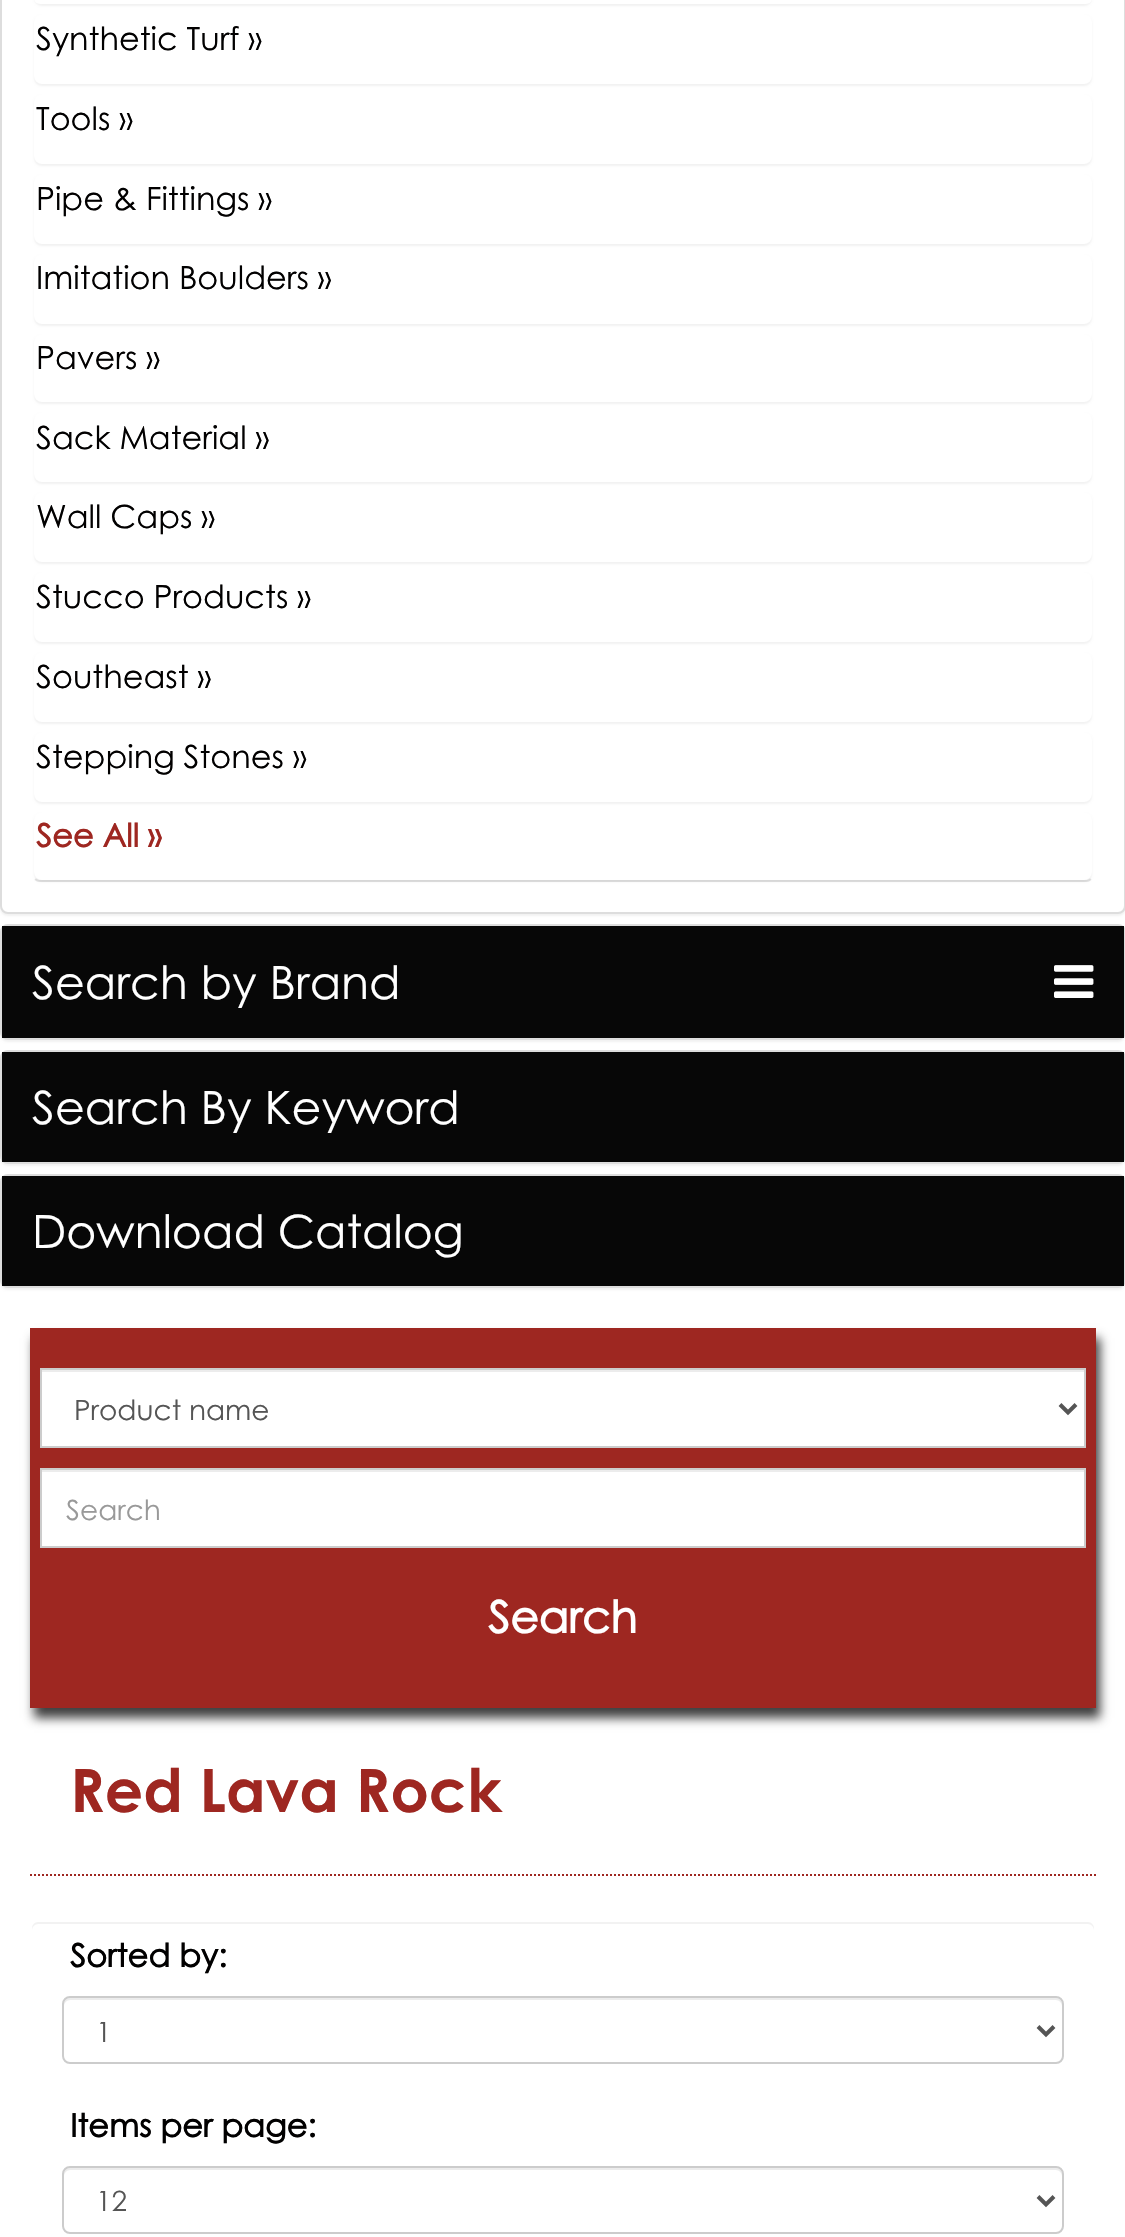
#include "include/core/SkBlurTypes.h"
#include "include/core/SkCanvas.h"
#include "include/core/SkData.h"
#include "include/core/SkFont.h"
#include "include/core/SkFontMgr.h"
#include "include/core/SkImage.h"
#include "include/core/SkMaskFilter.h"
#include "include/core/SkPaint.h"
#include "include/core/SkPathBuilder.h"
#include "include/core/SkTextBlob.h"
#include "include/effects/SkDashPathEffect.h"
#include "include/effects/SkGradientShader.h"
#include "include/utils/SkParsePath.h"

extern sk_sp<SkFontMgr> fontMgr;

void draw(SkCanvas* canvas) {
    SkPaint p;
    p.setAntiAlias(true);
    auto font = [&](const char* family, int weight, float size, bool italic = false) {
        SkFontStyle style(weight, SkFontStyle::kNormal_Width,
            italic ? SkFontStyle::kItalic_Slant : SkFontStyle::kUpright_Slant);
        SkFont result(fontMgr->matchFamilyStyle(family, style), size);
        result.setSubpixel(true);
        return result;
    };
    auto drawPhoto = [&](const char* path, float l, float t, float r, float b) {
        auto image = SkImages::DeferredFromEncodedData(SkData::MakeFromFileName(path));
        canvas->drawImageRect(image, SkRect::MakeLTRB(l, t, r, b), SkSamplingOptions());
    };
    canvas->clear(0xFFFFFFFF);
    p.setColor(0x0D000000);
    p.setMaskFilter(SkMaskFilter::MakeBlur(kNormal_SkBlurStyle, 1));
    canvas->drawRoundRect(SkRect::MakeLTRB(0, -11, 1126, 916), 8, 8, p);
    p.setMaskFilter(nullptr);
    p.setColor(0xFFFFFFFF);
    canvas->drawRoundRect(SkRect::MakeLTRB(1, -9, 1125, 913), 7, 7, p);
    p.setStyle(SkPaint::kStroke_Style);
    p.setStrokeWidth(2);
    p.setColor(0xFFDDDDDD);
    canvas->drawRoundRect(SkRect::MakeLTRB(1, -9, 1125, 913), 7, 7, p);
    p.setColor(0xFFE3E3E3);
    canvas->drawPath(SkPathBuilder().moveTo(1091, 879).cubicTo(1089.5f, 880.5f, 1088, 881, 1086, 881).lineTo(40, 881).cubicTo(38, 881, 36.5f, 880.5f, 35, 879).detach(), p);
    p.setColor(0xFFFFFFFF);
    canvas->drawPath(SkPathBuilder().moveTo(35, 879).cubicTo(33.5f, 877.5f, 33, 876, 33, 874).lineTo(33, -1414).cubicTo(33, -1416, 33.5f, -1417.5f, 35, -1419).cubicTo(36.5f, -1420.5f, 38, -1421, 40, -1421).lineTo(1086, -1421).cubicTo(1088, -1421, 1089.5f, -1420.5f, 1091, -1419).cubicTo(1092.5f, -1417.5f, 1093, -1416, 1093, -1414).lineTo(1093, 874).cubicTo(1093, 876, 1092.5f, 877.5f, 1091, 879).detach(), p);
    p.setStyle(SkPaint::kFill_Style);
    p.setColor(0x0D000000);
    p.setMaskFilter(SkMaskFilter::MakeBlur(kNormal_SkBlurStyle, 1));
    canvas->drawRoundRect(SkRect::MakeLTRB(34, -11, 1092, 6), 8, 8, p);
    p.setMaskFilter(nullptr);
    p.setColor(0xFFFFFFFF);
    canvas->drawRoundRect(SkRect::MakeLTRB(34, -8, 1092, 4), 8, 8, p);
    p.setColor(0x0D000000);
    p.setMaskFilter(SkMaskFilter::MakeBlur(kNormal_SkBlurStyle, 1));
    canvas->drawRoundRect(SkRect::MakeLTRB(34, 16, 1092, 86), 8, 8, p);
    p.setMaskFilter(nullptr);
    p.setColor(0xFFFFFFFF);
    canvas->drawRoundRect(SkRect::MakeLTRB(34, 14, 1092, 84), 8, 8, p);
    auto font1 = font("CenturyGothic", 400, 32);
    p.setColor(0xFF010000);
    canvas->drawString("Synthetic Turf »", 36, 50, font1, p);
    p.setColor(0x0D000000);
    p.setMaskFilter(SkMaskFilter::MakeBlur(kNormal_SkBlurStyle, 1));
    canvas->drawRoundRect(SkRect::MakeLTRB(34, 96, 1092, 166), 8, 8, p);
    p.setMaskFilter(nullptr);
    p.setColor(0xFFFFFFFF);
    canvas->drawRoundRect(SkRect::MakeLTRB(34, 94, 1092, 164), 8, 8, p);
    p.setColor(0xFF010000);
    canvas->drawString("Tools »", 36, 130, font1, p);
    p.setColor(0x0D000000);
    p.setMaskFilter(SkMaskFilter::MakeBlur(kNormal_SkBlurStyle, 1));
    canvas->drawRoundRect(SkRect::MakeLTRB(34, 176, 1092, 246), 8, 8, p);
    p.setMaskFilter(nullptr);
    p.setColor(0xFFFFFFFF);
    canvas->drawRoundRect(SkRect::MakeLTRB(34, 174, 1092, 244), 8, 8, p);
    p.setColor(0xFF010000);
    canvas->drawString("Pipe & Fittings »", 36, 210, font1, p);
    p.setColor(0x0D000000);
    p.setMaskFilter(SkMaskFilter::MakeBlur(kNormal_SkBlurStyle, 1));
    canvas->drawRoundRect(SkRect::MakeLTRB(34, 256, 1092, 326), 8, 8, p);
    p.setMaskFilter(nullptr);
    p.setColor(0xFFFFFFFF);
    canvas->drawRoundRect(SkRect::MakeLTRB(34, 254, 1092, 324), 8, 8, p);
    p.setColor(0xFF010000);
    canvas->drawString("Imitation Boulders »", 36, 289, font1, p);
    p.setColor(0x0D000000);
    p.setMaskFilter(SkMaskFilter::MakeBlur(kNormal_SkBlurStyle, 1));
    canvas->drawRoundRect(SkRect::MakeLTRB(34, 336, 1092, 404), 8, 8, p);
    p.setMaskFilter(nullptr);
    p.setColor(0xFFFFFFFF);
    canvas->drawRoundRect(SkRect::MakeLTRB(34, 334, 1092, 402), 8, 8, p);
    p.setColor(0xFF010000);
    canvas->drawString("Pavers »", 36, 369, font1, p);
    p.setColor(0x0D000000);
    p.setMaskFilter(SkMaskFilter::MakeBlur(kNormal_SkBlurStyle, 1));
    canvas->drawRoundRect(SkRect::MakeLTRB(34, 414, 1092, 484), 8, 8, p);
    p.setMaskFilter(nullptr);
    p.setColor(0xFFFFFFFF);
    canvas->drawRoundRect(SkRect::MakeLTRB(34, 412, 1092, 482), 8, 8, p);
    p.setColor(0xFF010000);
    canvas->drawString("Sack Material »", 36, 449, font1, p);
    p.setColor(0x0D000000);
    p.setMaskFilter(SkMaskFilter::MakeBlur(kNormal_SkBlurStyle, 1));
    canvas->drawRoundRect(SkRect::MakeLTRB(34, 494, 1092, 564), 8, 8, p);
    p.setMaskFilter(nullptr);
    p.setColor(0xFFFFFFFF);
    canvas->drawRoundRect(SkRect::MakeLTRB(34, 492, 1092, 562), 8, 8, p);
    p.setColor(0xFF010000);
    canvas->drawString("Wall Caps »", 36, 528, font1, p);
    p.setColor(0x0D000000);
    p.setMaskFilter(SkMaskFilter::MakeBlur(kNormal_SkBlurStyle, 1));
    canvas->drawRoundRect(SkRect::MakeLTRB(34, 574, 1092, 644), 8, 8, p);
    p.setMaskFilter(nullptr);
    p.setColor(0xFFFFFFFF);
    canvas->drawRoundRect(SkRect::MakeLTRB(34, 572, 1092, 642), 8, 8, p);
    p.setColor(0xFF010000);
    canvas->drawString("Stucco Products »", 36, 608, font1, p);
    p.setColor(0x0D000000);
    p.setMaskFilter(SkMaskFilter::MakeBlur(kNormal_SkBlurStyle, 1));
    canvas->drawRoundRect(SkRect::MakeLTRB(34, 654, 1092, 724), 8, 8, p);
    p.setMaskFilter(nullptr);
    p.setColor(0xFFFFFFFF);
    canvas->drawRoundRect(SkRect::MakeLTRB(34, 652, 1092, 722), 8, 8, p);
    p.setColor(0xFF010000);
    canvas->drawString("Southeast »", 36, 688, font1, p);
    p.setColor(0x0D000000);
    p.setMaskFilter(SkMaskFilter::MakeBlur(kNormal_SkBlurStyle, 1));
    canvas->drawRoundRect(SkRect::MakeLTRB(34, 734, 1092, 804), 8, 8, p);
    p.setMaskFilter(nullptr);
    p.setColor(0xFFFFFFFF);
    canvas->drawRoundRect(SkRect::MakeLTRB(34, 732, 1092, 802), 8, 8, p);
    p.setColor(0xFF010000);
    canvas->drawString("Stepping Stones »", 36, 768, font1, p);
    p.setColor(0x0D000000);
    p.setMaskFilter(SkMaskFilter::MakeBlur(kNormal_SkBlurStyle, 1));
    canvas->drawRoundRect(SkRect::MakeLTRB(34, 814, 1092, 882), 8, 8, p);
    p.setMaskFilter(nullptr);
    p.setColor(0xFFFFFFFF);
    canvas->drawRoundRect(SkRect::MakeLTRB(34, 812, 1092, 880), 8, 8, p);
    auto font2 = font("CenturyGothic", 700, 32);
    p.setColor(0xFF9E2721);
    canvas->drawString("See All »", 36, 847, font2, p);
    p.setColor(0x0D000000);
    p.setMaskFilter(SkMaskFilter::MakeBlur(kNormal_SkBlurStyle, 1));
    canvas->drawRoundRect(SkRect::MakeLTRB(0, 926, 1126, 1042), 8, 8, p);
    p.setMaskFilter(nullptr);
    p.setStyle(SkPaint::kStroke_Style);
    p.setColor(0xFFDDDDDD);
    canvas->drawRoundRect(SkRect::MakeLTRB(1, 925, 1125, 1039), 7, 7, p);
    p.setStyle(SkPaint::kFill_Style);
    p.setColor(0xFF070707);
    canvas->drawRect(SkRect::MakeLTRB(2, 926, 1124, 1038), p);
    auto font3 = font("CenturyGothic", 400, 46);
    p.setColor(0xFFFFFFFF);
    canvas->drawString("Search by Brand", 32, 999, font3, p);
    drawPhoto("media/1.png", 1054, 965, 1094, 998);
    p.setColor(0x0D000000);
    p.setMaskFilter(SkMaskFilter::MakeBlur(kNormal_SkBlurStyle, 1));
    canvas->drawRoundRect(SkRect::MakeLTRB(0, 1052, 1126, 1166), 8, 8, p);
    p.setMaskFilter(nullptr);
    p.setStyle(SkPaint::kStroke_Style);
    p.setColor(0xFFDDDDDD);
    canvas->drawRoundRect(SkRect::MakeLTRB(1, 1051, 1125, 1163), 7, 7, p);
    p.setStyle(SkPaint::kFill_Style);
    p.setColor(0xFF070707);
    canvas->drawRect(SkRect::MakeLTRB(2, 1052, 1124, 1162), p);
    p.setColor(0xFFFFFFFF);
    canvas->drawString("Search By Keyword", 32, 1124, font3, p);
    p.setColor(0x0D000000);
    p.setMaskFilter(SkMaskFilter::MakeBlur(kNormal_SkBlurStyle, 1));
    canvas->drawRoundRect(SkRect::MakeLTRB(0, 1176, 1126, 1290), 8, 8, p);
    p.setMaskFilter(nullptr);
    p.setStyle(SkPaint::kStroke_Style);
    p.setColor(0xFFDDDDDD);
    canvas->drawRoundRect(SkRect::MakeLTRB(1, 1175, 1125, 1287), 7, 7, p);
    p.setStyle(SkPaint::kFill_Style);
    p.setColor(0xFF070707);
    canvas->drawRect(SkRect::MakeLTRB(2, 1176, 1124, 1286), p);
    p.setColor(0xFFFFFFFF);
    canvas->drawString("Download Catalog", 32, 1248, font3, p);
    p.setColor(0xBF000000);
    p.setMaskFilter(SkMaskFilter::MakeBlur(kNormal_SkBlurStyle, 5));
    canvas->drawRect(SkRect::MakeLTRB(34, 1338, 1100, 1718), p);
    p.setMaskFilter(nullptr);
    {
        const struct { float l, t, r, b; SkColor color; } items[] = {
            {30, 1328, 1096, 1708, 0xFF9E2721},
            {42, 1372, 1084, 1446, 0xFFFFFFFF},
            {42, 1370, 1084, 1372, 0xFFECECEC},
        };
        for (auto [l, t, r, b, color] : items) {
            p.setColor(color);
            canvas->drawRect(SkRect::MakeLTRB(l, t, r, b), p);
        }
    }
    p.setStyle(SkPaint::kStroke_Style);
    p.setColor(0xFFCCCCCC);
    canvas->drawRect(SkRect::MakeLTRB(41, 1369, 1085, 1447), p);
    p.setStrokeWidth(4);
    p.setColor(0xFF555555);
    canvas->drawPath(SkPathBuilder().moveTo(1060, 1404.5f).lineTo(1068, 1412.5f).lineTo(1076, 1404.5f).detach(), p);
    auto font4 = font("CenturyGothic", 400, 28);
    p.setStyle(SkPaint::kFill_Style);
    canvas->drawString("Product name", 74, 1420, font4, p);
    p.setColor(0xFFFFFFFF);
    canvas->drawRect(SkRect::MakeLTRB(42, 1472, 1084, 1546), p);
    p.setColor(0xFFECECEC);
    canvas->drawRect(SkRect::MakeLTRB(42, 1470, 1084, 1472), p);
    p.setStyle(SkPaint::kStroke_Style);
    p.setStrokeWidth(2);
    p.setColor(0xFFCCCCCC);
    canvas->drawRect(SkRect::MakeLTRB(41, 1469, 1085, 1547), p);
    p.setStyle(SkPaint::kFill_Style);
    p.setColor(0xFF999999);
    canvas->drawString("Search", 66, 1520, font4, p);
    auto font5 = font("CenturyGothic", 700, 44);
    p.setColor(0xFFFFFFFF);
    canvas->drawString("Search", 488, 1633, font5, p);
    p.setStyle(SkPaint::kStroke_Style);
    p.setColor(0xFF9E2721);
    p.setPathEffect(SkDashPathEffect::Make({{2, 2}}, 0));
    canvas->drawPath(SkPathBuilder().moveTo(30, 1875).lineTo(1096, 1875).detach(), p);
    p.setPathEffect(nullptr);
    auto font6 = font("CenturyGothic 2", 700, 60);
    p.setStyle(SkPaint::kFill_Style);
    canvas->drawString("Red Lava Rock", 70, 1812, font6, p);
    p.setColor(0xFFF2F2F2);
    canvas->drawPath(SkPathBuilder().moveTo(38, 1924).lineTo(1088, 1924).cubicTo(1091, 1924, 1094, 1927, 1094, 1930).lineTo(1094, 1928).cubicTo(1094, 1925, 1091, 1922, 1088, 1922).lineTo(38, 1922).cubicTo(35, 1922, 32, 1925, 32, 1928).lineTo(32, 1930).cubicTo(32, 1927, 35, 1924, 38, 1924).close().detach(), p);
    p.setColor(0xFF010000);
    canvas->drawString("Sorted by:", 70, 1967, font2, p);
    p.setColor(0xFFECECEC);
    canvas->drawPath(SkPathBuilder().moveTo(70, 2000).lineTo(1056, 2000).cubicTo(1059, 2000, 1062, 2003, 1062, 2006).lineTo(1062, 2004).cubicTo(1062, 2001, 1059, 1998, 1056, 1998).lineTo(70, 1998).cubicTo(67, 1998, 64, 2001, 64, 2004).lineTo(64, 2006).cubicTo(64, 2003, 67, 2000, 70, 2000).close().detach(), p);
    p.setStyle(SkPaint::kStroke_Style);
    p.setColor(0xFFCCCCCC);
    canvas->drawRoundRect(SkRect::MakeLTRB(63, 1997, 1063, 2063), 7, 7, p);
    p.setStrokeWidth(4);
    p.setColor(0xFF555555);
    canvas->drawPath(SkPathBuilder().moveTo(1038, 2026.5f).lineTo(1046, 2034.5f).lineTo(1054, 2026.5f).detach(), p);
    p.setStyle(SkPaint::kFill_Style);
    canvas->drawString("1", 96, 2042, font4, p);
    p.setColor(0xFF010000);
    canvas->drawString("Items per page:", 70, 2137, font2, p);
    p.setColor(0xFFECECEC);
    canvas->drawPath(SkPathBuilder().moveTo(70, 2170).lineTo(1056, 2170).cubicTo(1059, 2170, 1062, 2173, 1062, 2176).lineTo(1062, 2174).cubicTo(1062, 2171, 1059, 2168, 1056, 2168).lineTo(70, 2168).cubicTo(67, 2168, 64, 2171, 64, 2174).lineTo(64, 2176).cubicTo(64, 2173, 67, 2170, 70, 2170).close().detach(), p);
    p.setStyle(SkPaint::kStroke_Style);
    p.setStrokeWidth(2);
    p.setColor(0xFFCCCCCC);
    canvas->drawRoundRect(SkRect::MakeLTRB(63, 2167, 1063, 2233), 7, 7, p);
    p.setStrokeWidth(4);
    p.setColor(0xFF555555);
    canvas->drawPath(SkPathBuilder().moveTo(1038, 2196.5f).lineTo(1046, 2204.5f).lineTo(1054, 2196.5f).detach(), p);
    p.setStyle(SkPaint::kFill_Style);
    canvas->drawString("12", 96, 2211, font4, p);
}
